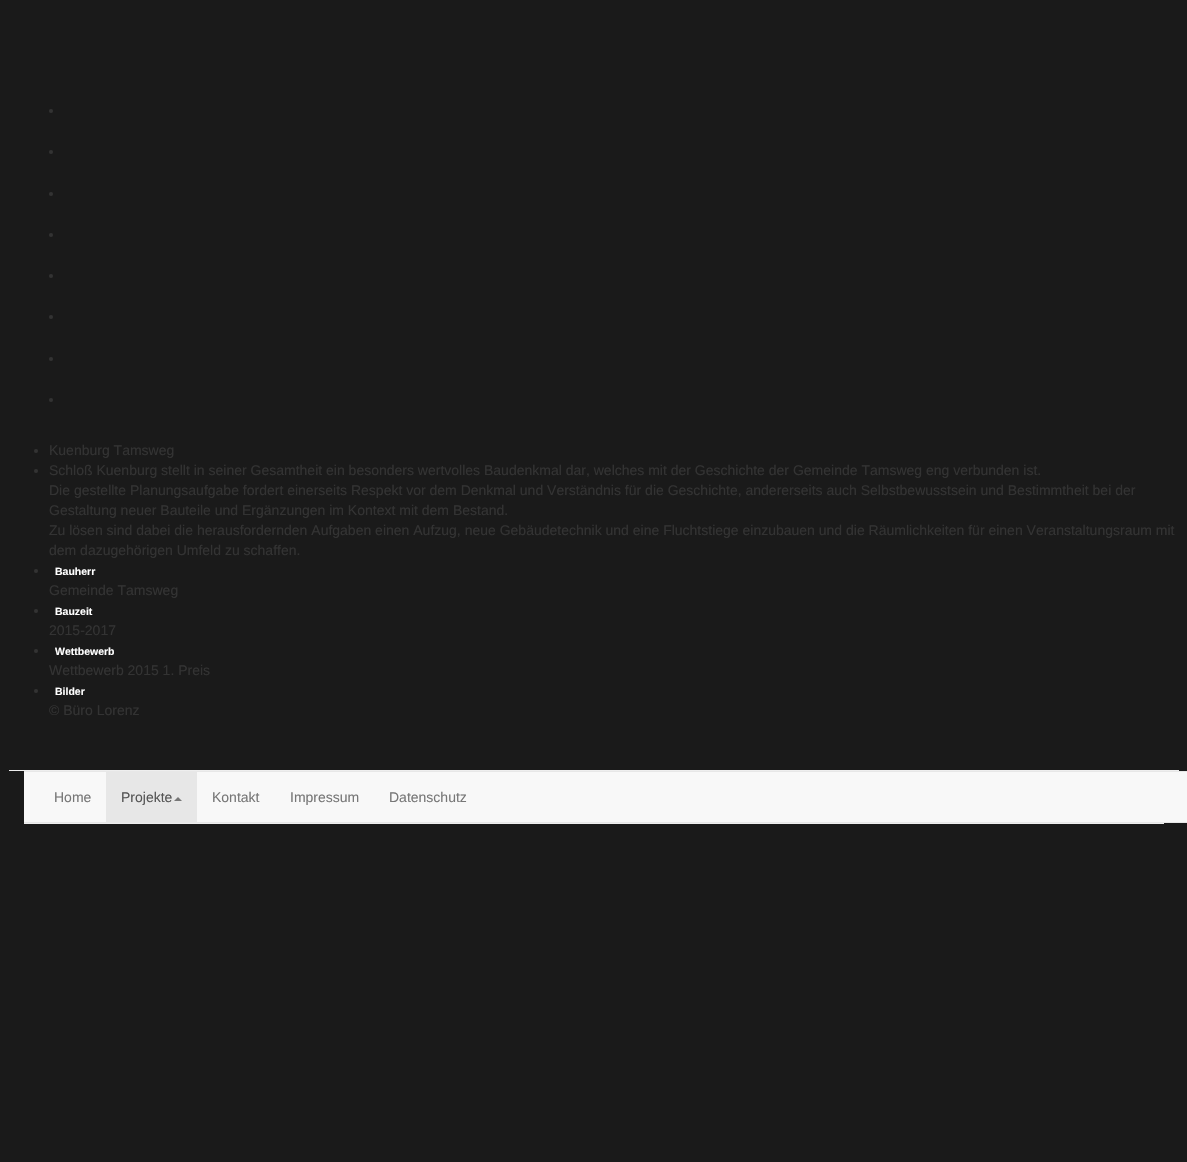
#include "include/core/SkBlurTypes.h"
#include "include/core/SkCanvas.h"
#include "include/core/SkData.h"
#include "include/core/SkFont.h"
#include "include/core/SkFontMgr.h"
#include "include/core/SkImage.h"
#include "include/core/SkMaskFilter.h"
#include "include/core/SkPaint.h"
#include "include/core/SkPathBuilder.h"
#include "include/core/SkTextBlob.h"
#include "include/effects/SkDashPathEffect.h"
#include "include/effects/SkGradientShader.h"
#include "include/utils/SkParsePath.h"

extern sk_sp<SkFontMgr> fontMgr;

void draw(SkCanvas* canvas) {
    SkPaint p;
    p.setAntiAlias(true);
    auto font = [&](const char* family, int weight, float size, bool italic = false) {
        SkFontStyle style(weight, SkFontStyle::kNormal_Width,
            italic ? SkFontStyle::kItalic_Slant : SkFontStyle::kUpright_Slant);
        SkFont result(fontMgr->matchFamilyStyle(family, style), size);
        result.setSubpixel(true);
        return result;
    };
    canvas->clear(0xFF1A1A1A);
    p.setColor(0xFF333333);
    canvas->drawCircle(51, 111, 2, p);
    canvas->drawCircle(51, 152, 2, p);
    canvas->drawCircle(51, 194, 2, p);
    canvas->drawCircle(51, 235, 2, p);
    canvas->drawCircle(51, 276, 2, p);
    canvas->drawCircle(51, 317, 2, p);
    canvas->drawCircle(51, 359, 2, p);
    canvas->drawCircle(51, 400, 2, p);
    canvas->drawCircle(36, 451, 2, p);
    auto font1 = font("Liberation Sans", 400, 14);
    canvas->drawString("Kuenburg Tamsweg", 49, 455, font1, p);
    canvas->drawCircle(36, 471, 2, p);
    {
        const struct { const char* s; float x, y; } items[] = {
            {"Schloß Kuenburg stellt in seiner Gesamtheit ein besonders wertvolles Baudenkmal dar, welches mit der Geschichte der Gemeinde Tamsweg eng verbunden ist.", 49, 475},
            {"Die gestellte Planungsaufgabe fordert einerseits Respekt vor dem Denkmal und Verständnis für die Geschichte, andererseits auch Selbstbewusstsein und Bestimmtheit bei der", 49, 495},
            {"Gestaltung neuer Bauteile und Ergänzungen im Kontext mit dem Bestand.", 49, 515},
            {"Zu lösen sind dabei die herausfordernden Aufgaben einen Aufzug, neue Gebäudetechnik und eine Fluchtstiege einzubauen und die Räumlichkeiten für einen Veranstaltungsraum mit", 49, 535},
            {"dem dazugehörigen Umfeld zu schaffen.", 49, 555},
        };
        for (auto [s, x, y] : items) {
            canvas->drawString(s, x, y, font1, p);
        }
    }
    canvas->drawCircle(36, 571, 2, p);
    auto font2 = font("Liberation Sans", 700, 10.5f);
    p.setColor(0xFFFFFFFF);
    canvas->drawString("Bauherr", 55, 575, font2, p);
    p.setColor(0xFF333333);
    canvas->drawString("Gemeinde Tamsweg", 49, 595, font1, p);
    canvas->drawCircle(36, 611, 2, p);
    p.setColor(0xFFFFFFFF);
    canvas->drawString("Bauzeit", 55, 615, font2, p);
    p.setColor(0xFF333333);
    canvas->drawString("2015-2017", 49, 635, font1, p);
    canvas->drawCircle(36, 651, 2, p);
    p.setColor(0xFFFFFFFF);
    canvas->drawString("Wettbewerb", 55, 655, font2, p);
    p.setColor(0xFF333333);
    canvas->drawString("Wettbewerb 2015 1. Preis", 49, 675, font1, p);
    canvas->drawCircle(36, 691, 2, p);
    p.setColor(0xFFFFFFFF);
    canvas->drawString("Bilder", 55, 695, font2, p);
    p.setColor(0xFF333333);
    canvas->drawString("© Büro Lorenz", 49, 715, font1, p);
    {
        const struct { float l, t, r, b; SkColor color; } items[] = {
            {9, 770, 1179, 771, 0xFFEEEEEE},
            {24, 772, 1187, 822, 0xFFF8F8F8},
            {24, 771, 1187, 772, 0xFFE7E7E7},
            {24, 822, 1187, 823, 0xFFE7E7E7},
        };
        for (auto [l, t, r, b, color] : items) {
            p.setColor(color);
            canvas->drawRect(SkRect::MakeLTRB(l, t, r, b), p);
        }
    }
    p.setColor(0xFF777777);
    canvas->drawString("Home", 54, 802, font1, p);
    p.setColor(0xFFE7E7E7);
    canvas->drawRect(SkRect::MakeLTRB(106, 772, 197, 822), p);
    p.setColor(0xFF555555);
    canvas->drawString("Projekte", 121, 802, font1, p);
    p.setColor(0xFF777777);
    canvas->drawPath(SkPathBuilder().moveTo(182, 801).lineTo(174, 801).lineTo(178, 797).close().detach(), p);
    {
        const struct { const char* s; float x, y; } items[] = {
            {"Kontakt", 212, 802},
            {"Impressum", 290, 802},
            {"Datenschutz", 389, 802},
        };
        for (auto [s, x, y] : items) {
            canvas->drawString(s, x, y, font1, p);
        }
    }
    p.setColor(0xFFEEEEEE);
    canvas->drawRect(SkRect::MakeLTRB(24, 823, 1164, 824), p);
}
